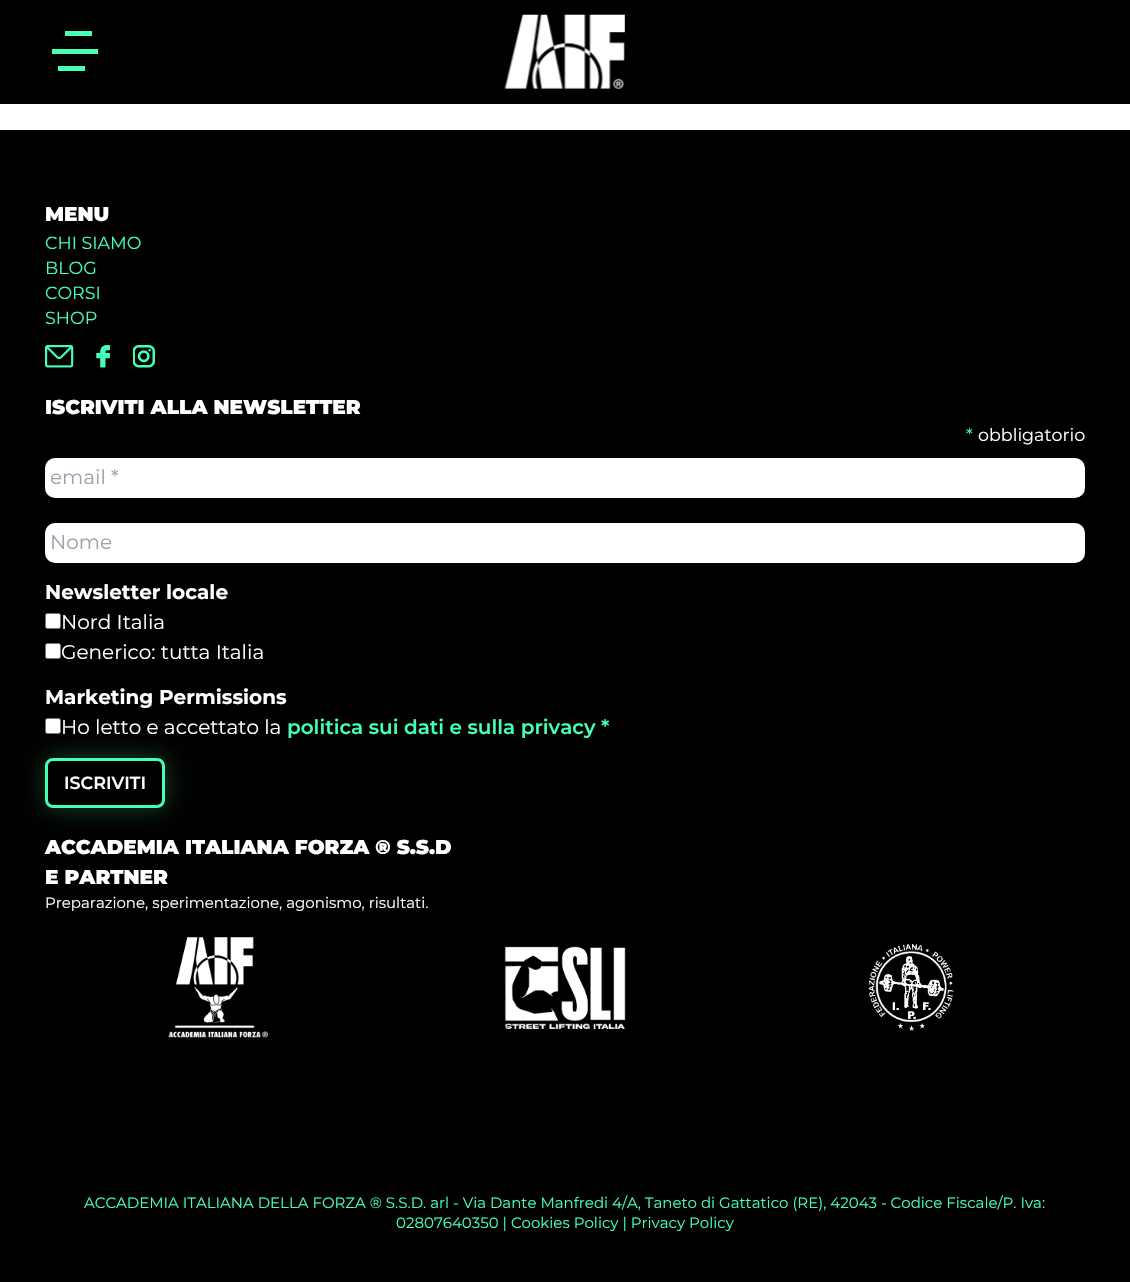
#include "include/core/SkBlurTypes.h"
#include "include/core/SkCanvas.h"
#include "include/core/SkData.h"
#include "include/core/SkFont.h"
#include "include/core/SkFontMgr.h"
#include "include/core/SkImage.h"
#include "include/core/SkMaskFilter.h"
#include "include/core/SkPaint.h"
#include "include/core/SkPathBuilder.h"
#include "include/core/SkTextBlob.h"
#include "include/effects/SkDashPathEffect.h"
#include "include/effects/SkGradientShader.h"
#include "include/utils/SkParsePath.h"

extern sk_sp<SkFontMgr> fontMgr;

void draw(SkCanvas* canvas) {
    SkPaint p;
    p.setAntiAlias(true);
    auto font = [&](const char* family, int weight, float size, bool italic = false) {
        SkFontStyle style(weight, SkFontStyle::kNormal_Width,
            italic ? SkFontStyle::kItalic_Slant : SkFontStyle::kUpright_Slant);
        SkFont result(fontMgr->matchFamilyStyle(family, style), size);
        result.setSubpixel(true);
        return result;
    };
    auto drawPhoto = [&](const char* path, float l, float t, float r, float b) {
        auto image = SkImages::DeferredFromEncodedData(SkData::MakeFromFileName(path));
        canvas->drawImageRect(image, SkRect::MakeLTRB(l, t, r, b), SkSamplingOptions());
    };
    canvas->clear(0xFFFFFFFF);
    p.setColor(0xFF000000);
    canvas->drawRect(SkRect::MakeLTRB(0, 0, 1130, 104), p);
    p.setColor(0xFF44FFB6);
    canvas->drawPath(SkPathBuilder().moveTo(85, 66).lineTo(85, 71).lineTo(58, 71).lineTo(58, 66).close().moveTo(98, 49).lineTo(98, 54).lineTo(52, 54).lineTo(52, 49).close().moveTo(92, 31).lineTo(92, 36).lineTo(65, 36).lineTo(65, 31).close().detach(), p);
    drawPhoto("media/1.png", 504, 14, 625, 89);
    p.setColor(0xFF000000);
    canvas->drawRect(SkRect::MakeLTRB(0, 130, 1130, 1282), p);
    auto font1 = font("Montserrat", 900, 20);
    p.setColor(0xFFFFFFFF);
    canvas->drawString("MENU", 45, 221, font1, p);
    auto font2 = font("Montserrat", 400, 17.5f);
    p.setColor(0xFF44FFB6);
    {
        const struct { const char* s; float x, y; } items[] = {
            {"CHI SIAMO", 45, 249},
            {"BLOG", 45, 274},
            {"CORSI", 45, 299},
            {"SHOP", 45, 324},
        };
        for (auto [s, x, y] : items) {
            canvas->drawString(s, x, y, font2, p);
        }
    }
    drawPhoto("media/2.png", 45, 345, 74, 368);
    drawPhoto("media/3.png", 96, 345, 110, 368);
    drawPhoto("media/4.png", 133, 345, 155, 368);
    p.setColor(0xFFFFFFFF);
    canvas->drawString("ISCRIVITI ALLA NEWSLETTER", 45, 414, font1, p);
    p.setColor(0xFF44FFB6);
    canvas->drawString("*", 966, 441, font2, p);
    p.setColor(0xFFFFFFFF);
    canvas->drawString("obbligatorio", 978, 441, font2, p);
    canvas->drawRoundRect(SkRect::MakeLTRB(45, 458, 1085, 498), 10, 10, p);
    auto font3 = font("Montserrat", 400, 20);
    p.setColor(0xFF9CA3AF);
    canvas->drawString("email *", 50, 484, font3, p);
    p.setColor(0xFFFFFFFF);
    canvas->drawRoundRect(SkRect::MakeLTRB(45, 523, 1085, 563), 10, 10, p);
    p.setColor(0xFF9CA3AF);
    canvas->drawString("Nome", 50, 549, font3, p);
    auto font4 = font("Montserrat", 700, 20);
    p.setColor(0xFFFFFFFF);
    canvas->drawString("Newsletter locale", 45, 599, font4, p);
    canvas->drawRoundRect(SkRect::MakeLTRB(45.5f, 613.5f, 60.5f, 628.5f), 2, 2, p);
    p.setStyle(SkPaint::kStroke_Style);
    p.setStrokeWidth(1);
    p.setColor(0xFF767676);
    canvas->drawRoundRect(SkRect::MakeLTRB(45.5f, 613.5f, 60.5f, 628.5f), 2, 2, p);
    p.setStyle(SkPaint::kFill_Style);
    p.setColor(0xFFFFFFFF);
    canvas->drawString("Nord Italia", 61, 629, font3, p);
    canvas->drawRoundRect(SkRect::MakeLTRB(45.5f, 643.5f, 60.5f, 658.5f), 2, 2, p);
    p.setStyle(SkPaint::kStroke_Style);
    p.setColor(0xFF767676);
    canvas->drawRoundRect(SkRect::MakeLTRB(45.5f, 643.5f, 60.5f, 658.5f), 2, 2, p);
    p.setStyle(SkPaint::kFill_Style);
    p.setColor(0xFFFFFFFF);
    canvas->drawString("Generico: tutta Italia", 61, 659, font3, p);
    canvas->drawString("Marketing Permissions", 45, 704, font4, p);
    canvas->drawRoundRect(SkRect::MakeLTRB(45.5f, 718.5f, 60.5f, 733.5f), 2, 2, p);
    p.setStyle(SkPaint::kStroke_Style);
    p.setColor(0xFF767676);
    canvas->drawRoundRect(SkRect::MakeLTRB(45.5f, 718.5f, 60.5f, 733.5f), 2, 2, p);
    p.setStyle(SkPaint::kFill_Style);
    p.setColor(0xFFFFFFFF);
    canvas->drawString("Ho letto e accettato la", 61, 734, font3, p);
    auto font5 = font("Montserrat", 600, 20);
    p.setColor(0xFF44FFB6);
    canvas->drawString("politica sui dati e sulla privacy *", 287, 734, font5, p);
    canvas->save();
    canvas->clipPath(SkPathBuilder(SkPathFillType::kEvenOdd).moveTo(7, 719).lineTo(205, 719).lineTo(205, 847).lineTo(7, 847).close().moveTo(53, 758).lineTo(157, 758).cubicTo(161.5f, 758, 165, 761.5f, 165, 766).lineTo(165, 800).cubicTo(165, 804.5f, 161.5f, 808, 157, 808).lineTo(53, 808).cubicTo(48.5f, 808, 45, 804.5f, 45, 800).lineTo(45, 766).cubicTo(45, 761.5f, 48.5f, 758, 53, 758).close().detach(), true);
    p.setColor(0x4D4ADE80);
    p.setMaskFilter(SkMaskFilter::MakeBlur(kNormal_SkBlurStyle, 12.5f));
    canvas->drawRoundRect(SkRect::MakeLTRB(46, 758, 166, 808), 8, 8, p);
    p.setMaskFilter(nullptr);
    canvas->restore();
    p.setStyle(SkPaint::kStroke_Style);
    p.setStrokeWidth(3);
    p.setColor(0xFF44FFB6);
    canvas->drawRoundRect(SkRect::MakeLTRB(46.5f, 759.5f, 163.5f, 806.5f), 6.5f, 6.5f, p);
    auto font6 = font("Montserrat", 600, 17.5f);
    p.setStyle(SkPaint::kFill_Style);
    p.setColor(0xFFFFFFFF);
    canvas->drawString("ISCRIVITI", 64, 789, font6, p);
    canvas->drawString("ACCADEMIA ITALIANA FORZA ® S.S.D", 45, 854, font1, p);
    canvas->drawString("E PARTNER", 45, 884, font1, p);
    auto font7 = font("Montserrat", 400, 15);
    canvas->drawString("Preparazione, sperimentazione, agonismo, risultati.", 45, 908, font7, p);
    drawPhoto("media/5.png", 168, 937, 268, 1038);
    drawPhoto("media/6.png", 504, 946, 626, 1029);
    drawPhoto("media/7.png", 868, 944, 954, 1031);
    p.setColor(0xFF44FFB6);
    canvas->drawString("ACCADEMIA ITALIANA DELLA FORZA ® S.S.D. arl - Via Dante Manfredi 4/A, Taneto di Gattatico (RE), 42043 - Codice Fiscale/P. Iva:", 84, 1208, font7, p);
    canvas->drawString("02807640350 | Cookies Policy | Privacy Policy", 396, 1228, font7, p);
}
